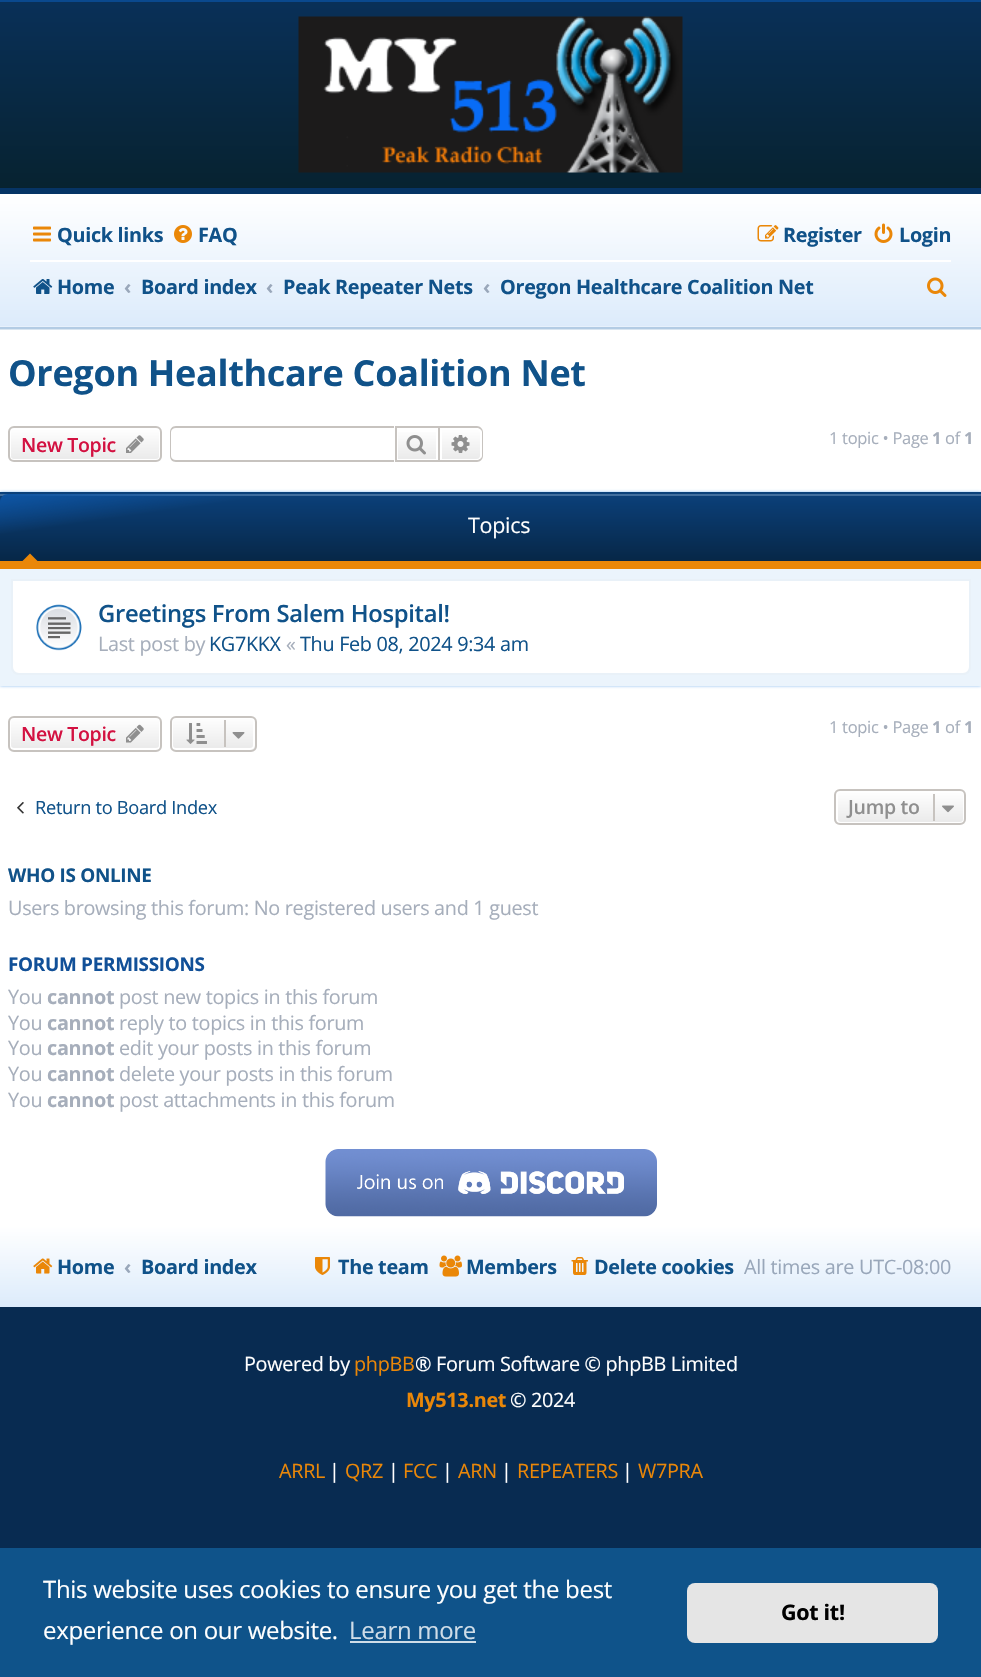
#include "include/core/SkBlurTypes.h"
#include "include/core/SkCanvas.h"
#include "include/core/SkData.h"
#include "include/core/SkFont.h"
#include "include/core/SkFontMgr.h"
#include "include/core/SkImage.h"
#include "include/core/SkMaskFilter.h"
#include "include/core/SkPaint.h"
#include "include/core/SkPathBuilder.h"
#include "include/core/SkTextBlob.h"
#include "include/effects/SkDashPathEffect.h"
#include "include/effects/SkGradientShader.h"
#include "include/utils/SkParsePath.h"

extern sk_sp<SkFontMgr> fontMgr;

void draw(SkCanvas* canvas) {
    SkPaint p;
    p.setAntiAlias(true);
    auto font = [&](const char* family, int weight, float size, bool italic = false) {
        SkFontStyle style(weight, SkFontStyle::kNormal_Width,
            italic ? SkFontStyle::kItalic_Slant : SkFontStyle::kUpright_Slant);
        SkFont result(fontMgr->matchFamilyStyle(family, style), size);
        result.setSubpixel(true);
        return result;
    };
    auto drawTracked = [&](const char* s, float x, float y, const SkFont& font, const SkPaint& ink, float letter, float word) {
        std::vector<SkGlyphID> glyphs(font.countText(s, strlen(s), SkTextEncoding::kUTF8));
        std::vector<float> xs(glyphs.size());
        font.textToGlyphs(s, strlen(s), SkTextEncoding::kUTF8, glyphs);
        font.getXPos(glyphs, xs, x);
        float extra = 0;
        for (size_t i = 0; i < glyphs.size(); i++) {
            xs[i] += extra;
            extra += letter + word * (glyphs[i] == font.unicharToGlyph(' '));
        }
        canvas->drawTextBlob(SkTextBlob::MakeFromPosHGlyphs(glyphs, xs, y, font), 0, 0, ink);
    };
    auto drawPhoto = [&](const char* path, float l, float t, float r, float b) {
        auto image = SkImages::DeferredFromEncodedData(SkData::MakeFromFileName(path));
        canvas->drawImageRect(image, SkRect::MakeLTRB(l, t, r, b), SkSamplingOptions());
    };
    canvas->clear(0xFF082B51);
    p.setColor(0xFFFFFFFF);
    canvas->drawRect(SkRect::MakeLTRB(0, 330, 981, 1226), p);
    {
        const SkColor colors[] = {0xFF07222F, 0xFF093058};
        const float stops[] = {0, 1};
        const SkPoint ends[] = {{491, 194}, {491, 1.5f}};
        p.setShader(SkGradientShader::MakeLinear(ends, colors, stops, 2, SkTileMode::kClamp));
        p.setAlpha(255);
    }
    canvas->drawRect(SkRect::MakeLTRB(0, 2, 981, 188), p);
    p.setShader(nullptr);
    p.setColor(0xFF0A498E);
    canvas->drawRect(SkRect::MakeLTRB(0, 0, 981, 2), p);
    drawPhoto("media/1.png", 298, 16, 683, 173);
    p.setColor(0xFFD9E6F1);
    canvas->drawRect(SkRect::MakeLTRB(0, 329, 981, 330), p);
    {
        const SkColor colors[] = {0xFFDCEBFB, 0xFFFFFFFF};
        const float stops[] = {0, 1};
        const SkPoint ends[] = {{491, 327}, {491, 194}};
        p.setShader(SkGradientShader::MakeLinear(ends, colors, stops, 2, SkTileMode::kClamp));
        p.setAlpha(255);
    }
    canvas->drawRect(SkRect::MakeLTRB(0, 194, 981, 326), p);
    {
        const SkColor colors[] = {0xFFE7F1FC, 0xFFFFFFFF};
        const float stops[] = {0, 1};
        const SkPoint ends[] = {{491, 327}, {491, 194}};
        p.setShader(SkGradientShader::MakeLinear(ends, colors, stops, 2, SkTileMode::kClamp));
        p.setAlpha(255);
    }
    canvas->drawRect(SkRect::MakeLTRB(0, 326, 981, 327), p);
    p.setShader(nullptr);
    p.setColor(0xFF063465);
    canvas->drawRect(SkRect::MakeLTRB(0, 188, 981, 194), p);
    p.setColor(0xFFB3CCE4);
    canvas->drawRect(SkRect::MakeLTRB(0, 327, 981, 329), p);
    drawPhoto("media/2.png", 33, 226, 51, 242);
    auto font1 = font("Open Sans", 700, 19.8f);
    p.setColor(0xFF105289);
    drawTracked("Quick links", 57, 242, font1, p, -0.3f, 0);
    drawPhoto("media/3.png", 174, 225, 192, 243);
    drawTracked("FAQ", 198, 242, font1, p, -0.3f, 0);
    drawPhoto("media/4.png", 757, 225, 779, 242);
    drawTracked("Register", 783, 242, font1, p, -0.3f, 0);
    drawPhoto("media/5.png", 874, 223, 893, 243);
    drawTracked("Login", 899, 242, font1, p, -0.3f, 0);
    p.setColor(0xFFFFFFFF);
    canvas->drawRect(SkRect::MakeLTRB(30, 260, 951, 262), p);
    drawPhoto("media/6.png", 33, 279, 53, 294);
    p.setColor(0xFF105289);
    drawTracked("Home", 57, 294, font1, p, -0.3f, 0);
    p.setColor(0xFF99A7BA);
    drawTracked("‹", 124, 294, font1, p, -0.3f, 0);
    p.setColor(0xFF105289);
    drawTracked("Board index", 141, 294, font1, p, -0.3f, 0);
    p.setColor(0xFF99A7BA);
    drawTracked("‹", 266, 294, font1, p, -0.3f, 0);
    p.setColor(0xFF105289);
    drawTracked("Peak Repeater Nets", 283, 294, font1, p, -0.3f, 0);
    p.setColor(0xFF99A7BA);
    drawTracked("‹", 483, 294, font1, p, -0.3f, 0);
    p.setColor(0xFF105289);
    drawTracked("Oregon Healthcare Coalition Net", 500, 294, font1, p, -0.3f, 0);
    drawPhoto("media/7.png", 927, 277, 947, 297);
    auto font2 = font("Open Sans", 700, 36);
    drawTracked("Oregon Healthcare Coalition Net", 8, 386, font2, p, -0.3f, 0);
    canvas->save();
    canvas->clipPath(SkPathBuilder().moveTo(14, 426).lineTo(156, 426).cubicTo(159.5f, 426, 162, 428.5f, 162, 432).lineTo(162, 456).cubicTo(162, 459.5f, 159.5f, 462, 156, 462).lineTo(14, 462).cubicTo(10.5f, 462, 8, 459.5f, 8, 456).lineTo(8, 432).cubicTo(8, 428.5f, 10.5f, 426, 14, 426).close().detach(), true);
    {
        const SkColor colors[] = {0xFFFFFFFF, 0xFFE9E9E9};
        const float stops[] = {0, 1};
        const SkPoint ends[] = {{85, 428}, {85, 461}};
        p.setShader(SkGradientShader::MakeLinear(ends, colors, stops, 2, SkTileMode::kClamp));
        p.setAlpha(255);
    }
    canvas->drawRect(SkRect::MakeLTRB(8, 428, 162, 461), p);
    canvas->restore();
    p.setStyle(SkPaint::kStroke_Style);
    p.setStrokeWidth(2);
    p.setShader(nullptr);
    p.setColor(0xFFFFFFFF);
    canvas->drawRoundRect(SkRect::MakeLTRB(10, 429, 160, 460), 4, 4, p);
    p.setColor(0xFFC7C3BF);
    canvas->drawRoundRect(SkRect::MakeLTRB(9, 427, 161, 461), 5, 5, p);
    auto font3 = font("Open Sans", 600, 19.5f);
    p.setStyle(SkPaint::kFill_Style);
    p.setColor(0xFFD31141);
    drawTracked("New Topic", 21, 452, font3, p, -0.3f, 0);
    drawPhoto("media/8.png", 126, 435, 144, 453);
    p.setColor(0xFFC7C3BF);
    canvas->drawPath(SkPathBuilder(SkPathFillType::kEvenOdd).moveTo(176, 426).lineTo(394, 426).lineTo(394, 462).lineTo(176, 462).cubicTo(172, 462, 170, 459, 170, 456).lineTo(170, 432).cubicTo(170, 429, 172, 426, 176, 426).close().moveTo(176, 428).lineTo(394, 428).lineTo(394, 460).lineTo(176, 460).cubicTo(173, 460, 171, 458, 171, 456).lineTo(171, 432).cubicTo(171, 430, 173, 428, 176, 428).close().detach(), p);
    {
        const SkColor colors[] = {0xFFFFFFFF, 0xFFE9E9E9};
        const float stops[] = {0, 1};
        const SkPoint ends[] = {{417, 428}, {417, 461}};
        p.setShader(SkGradientShader::MakeLinear(ends, colors, stops, 2, SkTileMode::kClamp));
        p.setAlpha(255);
    }
    canvas->drawRect(SkRect::MakeLTRB(398, 432, 436, 459), p);
    p.setStyle(SkPaint::kStroke_Style);
    p.setShader(nullptr);
    p.setColor(0xFFC7C3BF);
    canvas->drawRect(SkRect::MakeLTRB(396, 427, 439, 461), p);
    drawPhoto("media/9.png", 406, 435, 426, 455);
    p.setStyle(SkPaint::kFill_Style);
    {
        const SkColor colors[] = {0xFFFFFFFF, 0xFFE9E9E9};
        const float stops[] = {0, 1};
        const SkPoint ends[] = {{461, 428}, {461, 461}};
        p.setShader(SkGradientShader::MakeLinear(ends, colors, stops, 2, SkTileMode::kClamp));
        p.setAlpha(255);
    }
    canvas->drawPath(SkPathBuilder().moveTo(441, 429).lineTo(477, 429).cubicTo(479, 429, 481, 431, 481, 433).lineTo(481, 456).cubicTo(481, 458, 479, 460, 477, 460).lineTo(441, 460).close().detach(), p);
    p.setStyle(SkPaint::kStroke_Style);
    p.setShader(nullptr);
    p.setColor(0xFFFFFFFF);
    canvas->drawPath(SkPathBuilder().moveTo(441, 429).lineTo(477, 429).cubicTo(479, 429, 481, 431, 481, 433).lineTo(481, 456).cubicTo(481, 458, 479, 460, 477, 460).lineTo(441, 460).close().detach(), p);
    p.setStyle(SkPaint::kFill_Style);
    p.setColor(0xFFC7C3BF);
    canvas->drawPath(SkPathBuilder(SkPathFillType::kEvenOdd).moveTo(440, 426).lineTo(477, 426).cubicTo(480, 426, 483, 429, 483, 432).lineTo(483, 456).cubicTo(483, 459, 480, 462, 477, 462).lineTo(440, 462).close().moveTo(440, 428).lineTo(477, 428).cubicTo(479, 428, 482, 430, 482, 432).lineTo(482, 456).cubicTo(482, 458, 479, 460, 477, 460).lineTo(440, 460).close().detach(), p);
    drawPhoto("media/10.png", 451, 435, 470, 453);
    auto font4 = font("Open Sans", 400, 16.5f);
    p.setColor(0xFFA6AEBB);
    drawTracked("1 topic • Page", 829, 444, font4, p, -0.3f, 0);
    auto font5 = font("Open Sans", 700, 16.5f);
    drawTracked("1", 932, 444, font5, p, -0.3f, 0);
    drawTracked("of", 945, 444, font4, p, -0.3f, 0);
    drawTracked("1", 964, 444, font5, p, -0.3f, 0);
    p.setColor(0xE680B8EF);
    p.setMaskFilter(SkMaskFilter::MakeBlur(kNormal_SkBlurStyle, 1.5f));
    canvas->drawRect(SkRect::MakeLTRB(0, 492, 981, 686), p);
    p.setMaskFilter(nullptr);
    p.setColor(0xFFEBF4FC);
    canvas->drawRect(SkRect::MakeLTRB(0, 569, 981, 686), p);
    {
        const SkColor colors[] = {0xFF072747, 0xFF0B407A};
        const float stops[] = {0, 1};
        const SkPoint ends[] = {{491, 561}, {491, 494}};
        p.setShader(SkGradientShader::MakeLinear(ends, colors, stops, 2, SkTileMode::kClamp));
        p.setAlpha(255);
    }
    canvas->drawRect(SkRect::MakeLTRB(0, 496, 981, 561), p);
    p.setShader(nullptr);
    {
        const struct { float l, t, r, b; SkColor color; } items[] = {
            {0, 494, 981, 496, 0xFF416E9E},
            {0, 492, 981, 494, 0xFF0B417B},
            {0, 561, 981, 569, 0xFFEA8708},
        };
        for (auto [l, t, r, b, color] : items) {
            p.setColor(color);
            canvas->drawRect(SkRect::MakeLTRB(l, t, r, b), p);
        }
    }
    {
        const SkColor colors[] = {0x00072747, 0x000D54A3, 0xFF0D54A3};
        const float stops[] = {0, 0.81f, 1};
        const SkPoint ends[] = {{505, 628}, {476, 427}};
        p.setShader(SkGradientShader::MakeLinear(ends, colors, stops, 3, SkTileMode::kClamp));
        p.setAlpha(255);
    }
    canvas->drawPath(SkPathBuilder().moveTo(8, 494).lineTo(981, 494).lineTo(981, 561).lineTo(0, 561).lineTo(0, 502).cubicTo(0, 497.5f, 3.5f, 494, 8, 494).close().detach(), p);
    auto font6 = font("Open Sans", 400, 21.5f);
    p.setShader(nullptr);
    p.setColor(0xFFFFFFFF);
    drawTracked("Topics", 468, 533, font6, p, -0.3f, 0);
    p.setColor(0xFFEA8708);
    canvas->drawPath(SkPathBuilder().moveTo(37.5f, 561).lineTo(22.5f, 561).lineTo(30, 553.5f).close().detach(), p);
    p.setColor(0xFFFFFFFF);
    canvas->drawPath(SkPathBuilder().moveTo(12, 580).lineTo(970, 580).lineTo(970, 667).cubicTo(970, 671, 967, 674, 963, 674).lineTo(19, 674).cubicTo(15, 674, 12, 671, 12, 667).close().detach(), p);
    p.setStyle(SkPaint::kStroke_Style);
    p.setColor(0xFFE9F1F8);
    canvas->drawPath(SkPathBuilder().moveTo(12, 580).lineTo(970, 580).lineTo(970, 667).cubicTo(970, 671, 967, 674, 963, 674).lineTo(19, 674).cubicTo(15, 674, 12, 671, 12, 667).close().detach(), p);
    drawPhoto("media/11.png", 36, 604, 82, 651);
    auto font7 = font("Open Sans", 600, 23.75f);
    p.setStyle(SkPaint::kFill_Style);
    p.setColor(0xFF105289);
    drawTracked("Greetings From Salem Hospital!", 98, 622, font7, p, -0.3f, 0);
    auto font8 = font("Open Sans", 400, 19.8f);
    p.setColor(0xFFA6AEBB);
    drawTracked("Last post by", 98, 651, font8, p, -0.3f, 0);
    p.setColor(0xFF105289);
    drawTracked("KG7KKX", 209, 651, font8, p, -0.3f, 0);
    p.setColor(0xFFA6AEBB);
    drawTracked("«", 286, 651, font8, p, -0.3f, 0);
    p.setColor(0xFF105289);
    drawTracked("Thu Feb 08, 2024 9:34 am", 300, 651, font8, p, -0.3f, 0);
    canvas->save();
    canvas->clipPath(SkPathBuilder().moveTo(14, 716).lineTo(156, 716).cubicTo(159.5f, 716, 162, 718.5f, 162, 722).lineTo(162, 746).cubicTo(162, 749.5f, 159.5f, 752, 156, 752).lineTo(14, 752).cubicTo(10.5f, 752, 8, 749.5f, 8, 746).lineTo(8, 722).cubicTo(8, 718.5f, 10.5f, 716, 14, 716).close().detach(), true);
    {
        const SkColor colors[] = {0xFFFFFFFF, 0xFFE9E9E9};
        const float stops[] = {0, 1};
        const SkPoint ends[] = {{85, 717}, {85, 750}};
        p.setShader(SkGradientShader::MakeLinear(ends, colors, stops, 2, SkTileMode::kClamp));
        p.setAlpha(255);
    }
    canvas->drawRect(SkRect::MakeLTRB(8, 717, 162, 750), p);
    canvas->restore();
    p.setStyle(SkPaint::kStroke_Style);
    p.setShader(nullptr);
    p.setColor(0xFFFFFFFF);
    canvas->drawRoundRect(SkRect::MakeLTRB(10, 718, 160, 749), 4, 4, p);
    p.setColor(0xFFC7C3BF);
    canvas->drawRoundRect(SkRect::MakeLTRB(9, 717, 161, 751), 5, 5, p);
    p.setStyle(SkPaint::kFill_Style);
    p.setColor(0xFFD31141);
    drawTracked("New Topic", 21, 741, font3, p, -0.3f, 0);
    drawPhoto("media/12.png", 126, 724, 144, 743);
    canvas->save();
    canvas->clipPath(SkPathBuilder().moveTo(176, 716).lineTo(251, 716).cubicTo(254.5f, 716, 257, 718.5f, 257, 722).lineTo(257, 746).cubicTo(257, 749.5f, 254.5f, 752, 251, 752).lineTo(176, 752).cubicTo(172.5f, 752, 170, 749.5f, 170, 746).lineTo(170, 722).cubicTo(170, 718.5f, 172.5f, 716, 176, 716).close().detach(), true);
    {
        const SkColor colors[] = {0xFFFFFFFF, 0xFFE9E9E9};
        const float stops[] = {0, 1};
        const SkPoint ends[] = {{213, 717}, {213, 750}};
        p.setShader(SkGradientShader::MakeLinear(ends, colors, stops, 2, SkTileMode::kClamp));
        p.setAlpha(255);
    }
    canvas->drawRect(SkRect::MakeLTRB(170, 717, 257, 750), p);
    canvas->restore();
    p.setStyle(SkPaint::kStroke_Style);
    p.setShader(nullptr);
    p.setColor(0xFFFFFFFF);
    canvas->drawRoundRect(SkRect::MakeLTRB(172, 718, 254, 749), 4, 4, p);
    p.setColor(0xFFC7C3BF);
    canvas->drawRoundRect(SkRect::MakeLTRB(171, 717, 256, 751), 5, 5, p);
    drawPhoto("media/13.png", 186, 723, 207, 744);
    p.setStyle(SkPaint::kFill_Style);
    canvas->drawRect(SkRect::MakeLTRB(224, 720, 226, 747), p);
    drawPhoto("media/14.png", 232, 732, 245, 739);
    p.setColor(0xFFA6AEBB);
    drawTracked("1 topic • Page", 829, 733, font4, p, -0.3f, 0);
    drawTracked("1", 932, 733, font5, p, -0.3f, 0);
    drawTracked("of", 945, 733, font4, p, -0.3f, 0);
    drawTracked("1", 964, 733, font5, p, -0.3f, 0);
    drawPhoto("media/15.png", 17, 802, 24, 814);
    auto font9 = font("Open Sans", 400, 18.25f);
    p.setColor(0xFF105289);
    drawTracked("Return to Board Index", 35, 814, font9, p, -0.3f, 0);
    canvas->save();
    canvas->clipPath(SkPathBuilder().moveTo(840, 789).lineTo(960, 789).cubicTo(963.5f, 789, 966, 791.5f, 966, 795).lineTo(966, 819).cubicTo(966, 822.5f, 963.5f, 825, 960, 825).lineTo(840, 825).cubicTo(836.5f, 825, 834, 822.5f, 834, 819).lineTo(834, 795).cubicTo(834, 791.5f, 836.5f, 789, 840, 789).close().detach(), true);
    {
        const SkColor colors[] = {0xFFFFFFFF, 0xFFE9E9E9};
        const float stops[] = {0, 1};
        const SkPoint ends[] = {{900, 791}, {900, 824}};
        p.setShader(SkGradientShader::MakeLinear(ends, colors, stops, 2, SkTileMode::kClamp));
        p.setAlpha(255);
    }
    canvas->drawRect(SkRect::MakeLTRB(834, 791, 966, 824), p);
    canvas->restore();
    p.setStyle(SkPaint::kStroke_Style);
    p.setShader(nullptr);
    p.setColor(0xFFFFFFFF);
    canvas->drawRoundRect(SkRect::MakeLTRB(837, 792, 964, 823), 4, 4, p);
    p.setColor(0xFFC7C3BF);
    canvas->drawRoundRect(SkRect::MakeLTRB(835, 790, 965, 824), 5, 5, p);
    p.setStyle(SkPaint::kFill_Style);
    p.setColor(0xFF8F8F8F);
    drawTracked("Jump to", 848, 814, font3, p, -0.3f, 0);
    p.setColor(0xFFC7C3BF);
    canvas->drawRect(SkRect::MakeLTRB(933, 794, 935, 821), p);
    drawPhoto("media/16.png", 942, 805, 954, 813);
    auto font10 = font("Open Sans", 700, 18.9f);
    p.setColor(0xFF105289);
    drawTracked("WHO IS ONLINE", 8, 882, font10, p, -0.3f, 0);
    p.setColor(0xFFA6AEBB);
    drawTracked("Users browsing this forum: No registered users and 1 guest", 8, 915, font8, p, -0.3f, 0);
    p.setColor(0xFF115098);
    drawTracked("FORUM PERMISSIONS", 8, 971, font10, p, -0.3f, 0);
    p.setColor(0xFFA6AEBB);
    drawTracked("You", 8, 1004, font8, p, -0.3f, 0);
    drawTracked("cannot", 47, 1004, font1, p, -0.3f, 0);
    drawTracked("post new topics in this forum", 119, 1004, font8, p, -0.3f, 0);
    drawTracked("You", 8, 1030, font8, p, -0.3f, 0);
    drawTracked("cannot", 47, 1030, font1, p, -0.3f, 0);
    drawTracked("reply to topics in this forum", 119, 1030, font8, p, -0.3f, 0);
    drawTracked("You", 8, 1055, font8, p, -0.3f, 0);
    drawTracked("cannot", 47, 1055, font1, p, -0.3f, 0);
    drawTracked("edit your posts in this forum", 119, 1055, font8, p, -0.3f, 0);
    drawTracked("You", 8, 1081, font8, p, -0.3f, 0);
    drawTracked("cannot", 47, 1081, font1, p, -0.3f, 0);
    drawTracked("delete your posts in this forum", 119, 1081, font8, p, -0.3f, 0);
    drawTracked("You", 8, 1107, font8, p, -0.3f, 0);
    drawTracked("cannot", 47, 1107, font1, p, -0.3f, 0);
    drawTracked("post attachments in this forum", 119, 1107, font8, p, -0.3f, 0);
    drawPhoto("media/17.png", 325, 1149, 657, 1217);
    {
        const SkColor colors[] = {0xFFDCEBFB, 0xFFFFFFFF};
        const float stops[] = {0, 1};
        const SkPoint ends[] = {{491, 1307}, {491, 1226}};
        p.setShader(SkGradientShader::MakeLinear(ends, colors, stops, 2, SkTileMode::kClamp));
        p.setAlpha(255);
    }
    canvas->drawRect(SkRect::MakeLTRB(0, 1226, 981, 1307), p);
    drawPhoto("media/18.png", 33, 1258, 53, 1274);
    p.setShader(nullptr);
    p.setColor(0xFF105289);
    drawTracked("Home", 57, 1274, font1, p, -0.3f, 0);
    p.setColor(0xFF99A7BA);
    drawTracked("‹", 124, 1274, font1, p, -0.3f, 0);
    p.setColor(0xFF105289);
    drawTracked("Board index", 141, 1274, font1, p, -0.3f, 0);
    drawPhoto("media/19.png", 315, 1257, 330, 1275);
    drawTracked("The team", 338, 1274, font1, p, -0.3f, 0);
    drawPhoto("media/20.png", 439, 1255, 462, 1277);
    drawTracked("Members", 466, 1274, font1, p, -0.3f, 0);
    drawPhoto("media/21.png", 571, 1257, 588, 1275);
    drawTracked("Delete cookies", 594, 1274, font1, p, -0.3f, 0);
    p.setColor(0xFF99A7BA);
    drawTracked("All times are", 744, 1274, font8, p, -0.3f, 0);
    drawTracked("UTC-08:00", 859, 1274, font8, p, -0.3f, 0);
    p.setColor(0xFFFFFFFF);
    drawTracked("Powered by", 244, 1371, font8, p, -0.3f, 0);
    p.setColor(0xFFEA8708);
    drawTracked("phpBB", 354, 1371, font8, p, -0.3f, 0);
    p.setColor(0xFFFFFFFF);
    drawTracked("® Forum Software © phpBB Limited", 415, 1371, font8, p, -0.3f, 0);
    p.setColor(0xFFEA8708);
    drawTracked("My513.net", 406, 1407, font1, p, -0.3f, 0);
    p.setColor(0xFFFFFFFF);
    drawTracked("© 2024", 510, 1407, font8, p, -0.3f, 0);
    p.setColor(0xFFEA8708);
    drawTracked("ARRL", 279, 1478, font8, p, -0.3f, 0);
    p.setColor(0xFFFFFFFF);
    drawTracked("|", 329, 1478, font8, p, -0.3f, 0);
    p.setColor(0xFFEA8708);
    drawTracked("QRZ", 345, 1478, font8, p, -0.3f, 0);
    p.setColor(0xFFFFFFFF);
    drawTracked("|", 388, 1478, font8, p, -0.3f, 0);
    p.setColor(0xFFEA8708);
    drawTracked("FCC", 403, 1478, font8, p, -0.3f, 0);
    p.setColor(0xFFFFFFFF);
    drawTracked("|", 442, 1478, font8, p, -0.3f, 0);
    p.setColor(0xFFEA8708);
    drawTracked("ARN", 458, 1478, font8, p, -0.3f, 0);
    p.setColor(0xFFFFFFFF);
    drawTracked("|", 501, 1478, font8, p, -0.3f, 0);
    p.setColor(0xFFEA8708);
    drawTracked("REPEATERS", 517, 1478, font8, p, -0.3f, 0);
    p.setColor(0xFFFFFFFF);
    drawTracked("|", 622, 1478, font8, p, -0.3f, 0);
    p.setColor(0xFFEA8708);
    drawTracked("W7PRA", 638, 1478, font8, p, -0.3f, 0);
    p.setColor(0xFF0F538A);
    canvas->drawRect(SkRect::MakeLTRB(0, 1548, 981, 1677), p);
    auto font11 = font("Open Sans", 400, 24);
    p.setColor(0xFFFFFFFF);
    drawTracked("This website uses cookies to ensure you get the best", 43, 1598, font11, p, -0.3f, 0);
    drawTracked("experience on our website.", 43, 1639, font11, p, -0.3f, 0);
    p.setColor(0xFFCFDDE8);
    drawTracked("Learn more", 349, 1639, font11, p, -0.3f, 0);
    canvas->drawRect(SkRect::MakeLTRB(350, 1641, 476, 1643), p);
    p.setColor(0xFFE5E5E5);
    canvas->drawRoundRect(SkRect::MakeLTRB(687, 1583, 938, 1643), 8, 8, p);
    auto font12 = font("Open Sans", 700, 21.5f);
    p.setColor(0xFF000000);
    drawTracked("Got it!", 781, 1620, font12, p, -0.3f, 0);
}
